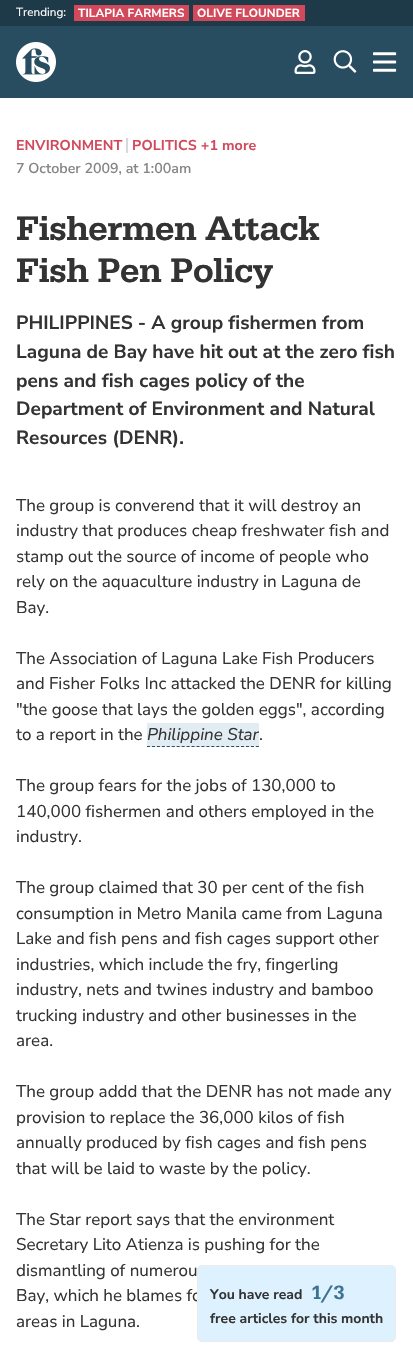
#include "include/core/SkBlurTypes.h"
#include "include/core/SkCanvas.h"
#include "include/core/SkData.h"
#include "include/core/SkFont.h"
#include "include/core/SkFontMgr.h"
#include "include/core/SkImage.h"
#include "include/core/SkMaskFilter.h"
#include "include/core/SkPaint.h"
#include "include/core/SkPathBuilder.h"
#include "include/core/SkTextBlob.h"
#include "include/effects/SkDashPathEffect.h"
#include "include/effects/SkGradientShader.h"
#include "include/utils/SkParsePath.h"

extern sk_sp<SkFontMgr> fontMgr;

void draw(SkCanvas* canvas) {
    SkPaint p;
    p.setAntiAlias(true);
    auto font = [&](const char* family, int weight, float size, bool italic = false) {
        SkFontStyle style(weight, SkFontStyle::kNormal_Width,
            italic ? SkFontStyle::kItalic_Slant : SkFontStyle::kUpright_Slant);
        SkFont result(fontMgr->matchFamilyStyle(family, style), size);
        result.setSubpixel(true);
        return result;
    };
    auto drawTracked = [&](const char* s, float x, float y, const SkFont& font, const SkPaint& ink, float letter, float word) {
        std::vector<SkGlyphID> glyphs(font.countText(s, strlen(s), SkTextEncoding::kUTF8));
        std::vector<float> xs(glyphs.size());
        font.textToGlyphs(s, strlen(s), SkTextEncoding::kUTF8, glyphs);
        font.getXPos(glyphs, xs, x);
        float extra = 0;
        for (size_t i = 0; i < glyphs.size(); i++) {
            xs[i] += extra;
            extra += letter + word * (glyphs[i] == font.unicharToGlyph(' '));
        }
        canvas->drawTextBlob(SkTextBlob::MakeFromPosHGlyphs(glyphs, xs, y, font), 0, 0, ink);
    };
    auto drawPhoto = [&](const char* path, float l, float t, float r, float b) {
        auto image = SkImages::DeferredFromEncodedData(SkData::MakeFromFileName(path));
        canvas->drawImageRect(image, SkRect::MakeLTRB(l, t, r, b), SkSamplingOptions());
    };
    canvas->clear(0xFFFFFFFF);
    p.setColor(0xFF1E3948);
    canvas->drawRect(SkRect::MakeLTRB(0, 0, 413, 26), p);
    auto font1 = font("Nunito Sans", 400, 11.75f);
    p.setColor(0xFFFFFFFF);
    canvas->drawString("Trending:", 16, 16, font1, p);
    p.setColor(0xFFD1495B);
    canvas->drawRect(SkRect::MakeLTRB(74, 5, 189, 21), p);
    auto font2 = font("Nunito Sans", 700, 11.75f);
    p.setColor(0xFFFFFFFF);
    drawTracked("TILAPIA FARMERS", 78, 17, font2, p, 0.1f, 0);
    p.setColor(0xFFD1495B);
    canvas->drawRect(SkRect::MakeLTRB(193, 5, 305, 21), p);
    p.setColor(0xFFFFFFFF);
    drawTracked("OLIVE FLOUNDER", 197, 17, font2, p, 0.1f, 0);
    p.setColor(0xFF284C60);
    canvas->drawRect(SkRect::MakeLTRB(0, 26, 413, 98), p);
    drawPhoto("media/1.png", 16, 42, 56, 82);
    drawPhoto("media/2.png", 294, 50, 316, 74);
    drawPhoto("media/3.png", 333, 50, 357, 73);
    drawPhoto("media/4.png", 373, 52, 397, 72);
    auto font3 = font("Nunito Sans", 700, 14.25f);
    p.setColor(0xFFD1495B);
    drawTracked("ENVIRONMENT", 16, 150, font3, p, 0.1f, 0);
    p.setColor(0xFFD9D9D9);
    canvas->drawRect(SkRect::MakeLTRB(126, 138, 128, 153), p);
    p.setColor(0xFFD1495B);
    drawTracked("POLITICS +1 more", 132, 150, font3, p, 0.1f, 0);
    auto font4 = font("Nunito Sans", 600, 14.25f);
    p.setColor(0xFF858584);
    canvas->drawString("7 October 2009, at 1:00am", 16, 173, font4, p);
    auto font5 = font("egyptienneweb", 400, 35.25f);
    p.setColor(0xFF333333);
    drawTracked("Fishermen Attack", 16, 240, font5, p, -0.3f, 0);
    drawTracked("Fish Pen Policy", 16, 282, font5, p, -0.3f, 0);
    auto font6 = font("Nunito Sans", 400, 17);
    canvas->drawString("Bay, which he blames fo", 16, 1301, font6, p);
    p.setColor(0xFFDDF2FE);
    canvas->drawRoundRect(SkRect::MakeLTRB(197.5f, 1265.5f, 395.5f, 1341.5f), 4.5f, 4.5f, p);
    p.setStyle(SkPaint::kStroke_Style);
    p.setStrokeWidth(1);
    p.setColor(0xFFEBEBEB);
    canvas->drawRoundRect(SkRect::MakeLTRB(197.5f, 1265.5f, 395.5f, 1341.5f), 4.5f, 4.5f, p);
    auto font7 = font("Nunito Sans", 700, 14);
    p.setStyle(SkPaint::kFill_Style);
    p.setColor(0xFF333333);
    canvas->drawString("You have read", 210, 1299, font7, p);
    auto font8 = font("egyptienneweb", 400, 20);
    p.setColor(0xFF3D7391);
    canvas->drawString("1/3", 311, 1299, font8, p);
    p.setColor(0xFF333333);
    canvas->drawString("free articles for this month", 210, 1323, font7, p);
    auto font9 = font("Nunito Sans", 700, 19.1f);
    {
        const struct { const char* s; float x, y; } items[] = {
            {"PHILIPPINES - A group fishermen from", 16, 329},
            {"Laguna de Bay have hit out at the zero fish", 16, 358},
            {"pens and fish cages policy of the", 16, 387},
            {"Department of Environment and Natural", 16, 415},
            {"Resources (DENR).", 16, 444},
        };
        for (auto [s, x, y] : items) {
            canvas->drawString(s, x, y, font9, p);
        }
    }
    {
        const struct { const char* s; float x, y; } items[] = {
            {"The group is converend that it will destroy an", 16, 511},
            {"industry that produces cheap freshwater fish and", 16, 536},
            {"stamp out the source of income of people who", 16, 562},
            {"rely on the aquaculture industry in Laguna de", 16, 587},
            {"Bay.", 16, 613},
            {"The Association of Laguna Lake Fish Producers", 16, 664},
            {"and Fisher Folks Inc attacked the DENR for killing", 16, 689},
            {"\"the goose that lays the golden eggs\", according", 16, 715},
            {"to a report in the", 16, 740},
        };
        for (auto [s, x, y] : items) {
            canvas->drawString(s, x, y, font6, p);
        }
    }
    p.setColor(0xFFE1ECF3);
    canvas->drawRect(SkRect::MakeLTRB(147, 723, 259, 747), p);
    auto font10 = font("Nunito Sans", 400, 17, true);
    p.setColor(0xFF333333);
    canvas->drawString("Philippine Star", 147, 740, font10, p);
    p.setStyle(SkPaint::kStroke_Style);
    p.setColor(0xFF284C60);
    p.setPathEffect(SkDashPathEffect::Make({{3, 1.95f}}, 0));
    canvas->drawPath(SkPathBuilder().moveTo(147, 746.5f).lineTo(259, 746.5f).detach(), p);
    p.setPathEffect(nullptr);
    p.setStyle(SkPaint::kFill_Style);
    p.setColor(0xFF333333);
    {
        const struct { const char* s; float x, y; } items[] = {
            {".", 259, 740},
            {"The group fears for the jobs of 130,000 to", 16, 791},
            {"140,000 fishermen and others employed in the", 16, 817},
            {"industry.", 16, 842},
            {"The group claimed that 30 per cent of the fish", 16, 893},
            {"consumption in Metro Manila came from Laguna", 16, 919},
            {"Lake and fish pens and fish cages support other", 16, 944},
            {"industries, which include the fry, fingerling", 16, 970},
            {"industry, nets and twines industry and bamboo", 16, 995},
            {"trucking industry and other businesses in the", 16, 1021},
            {"area.", 16, 1046},
            {"The group addd that the DENR has not made any", 16, 1097},
            {"provision to replace the 36,000 kilos of fish", 16, 1123},
            {"annually produced by fish cages and fish pens", 16, 1148},
            {"that will be laid to waste by the policy.", 16, 1174},
            {"The Star report says that the environment", 16, 1225},
            {"Secretary Lito Atienza is pushing for the", 16, 1250},
            {"dismantling of numerou", 16, 1276},
            {"areas in Laguna.", 16, 1327},
        };
        for (auto [s, x, y] : items) {
            canvas->drawString(s, x, y, font6, p);
        }
    }
}
